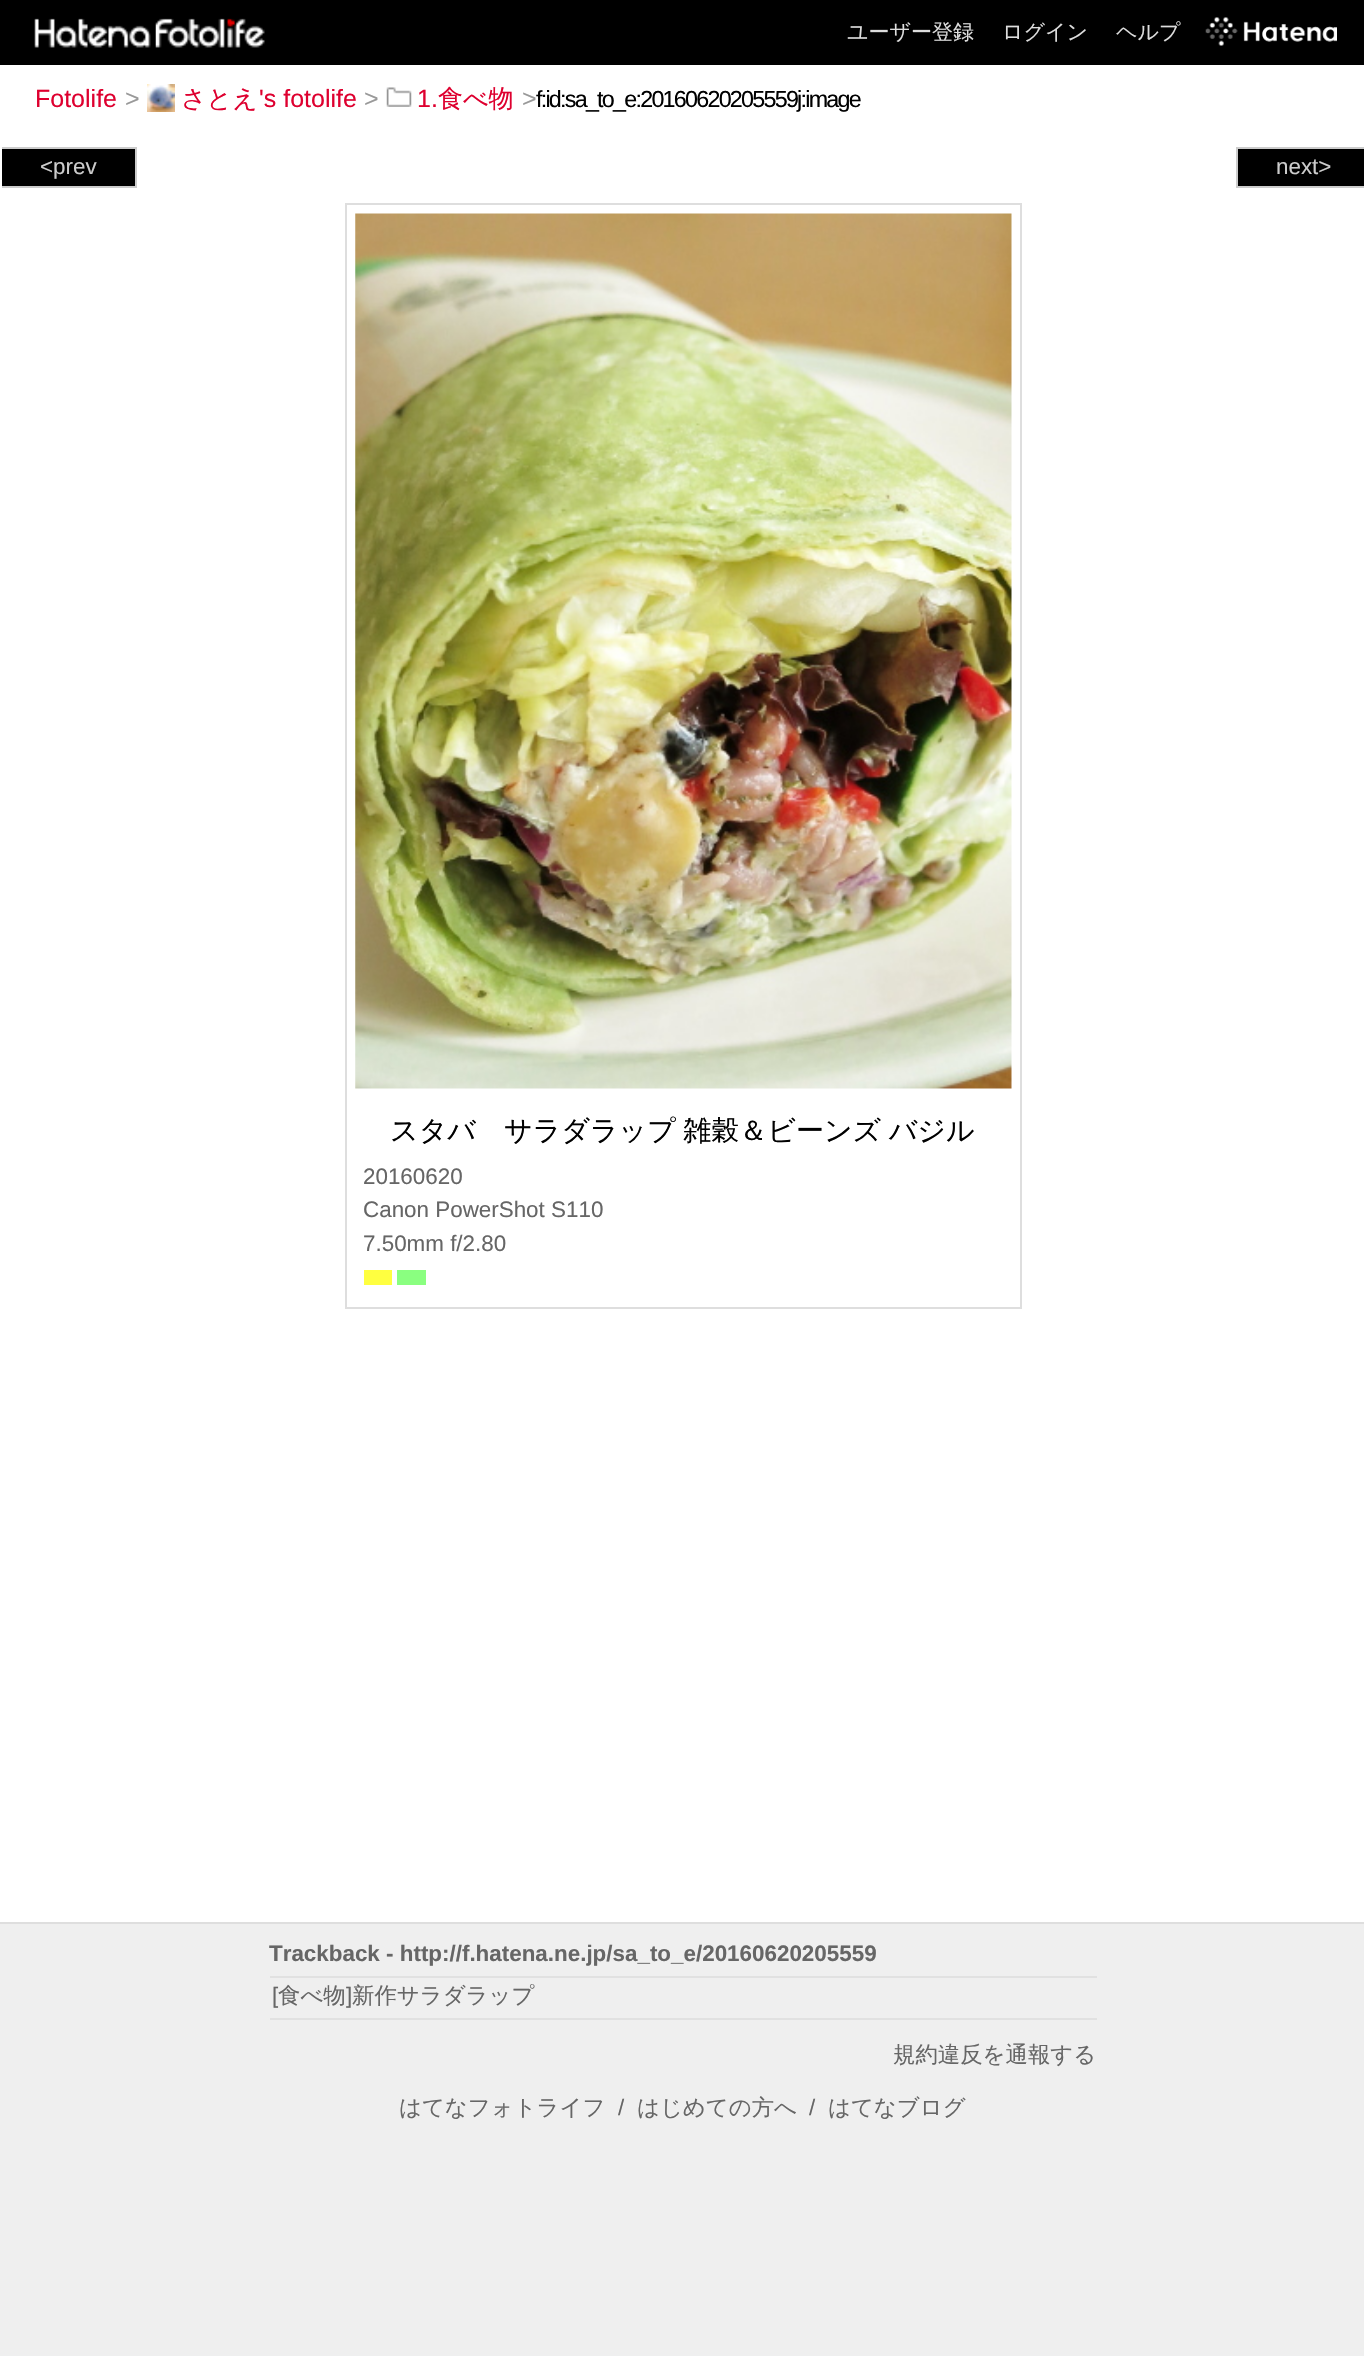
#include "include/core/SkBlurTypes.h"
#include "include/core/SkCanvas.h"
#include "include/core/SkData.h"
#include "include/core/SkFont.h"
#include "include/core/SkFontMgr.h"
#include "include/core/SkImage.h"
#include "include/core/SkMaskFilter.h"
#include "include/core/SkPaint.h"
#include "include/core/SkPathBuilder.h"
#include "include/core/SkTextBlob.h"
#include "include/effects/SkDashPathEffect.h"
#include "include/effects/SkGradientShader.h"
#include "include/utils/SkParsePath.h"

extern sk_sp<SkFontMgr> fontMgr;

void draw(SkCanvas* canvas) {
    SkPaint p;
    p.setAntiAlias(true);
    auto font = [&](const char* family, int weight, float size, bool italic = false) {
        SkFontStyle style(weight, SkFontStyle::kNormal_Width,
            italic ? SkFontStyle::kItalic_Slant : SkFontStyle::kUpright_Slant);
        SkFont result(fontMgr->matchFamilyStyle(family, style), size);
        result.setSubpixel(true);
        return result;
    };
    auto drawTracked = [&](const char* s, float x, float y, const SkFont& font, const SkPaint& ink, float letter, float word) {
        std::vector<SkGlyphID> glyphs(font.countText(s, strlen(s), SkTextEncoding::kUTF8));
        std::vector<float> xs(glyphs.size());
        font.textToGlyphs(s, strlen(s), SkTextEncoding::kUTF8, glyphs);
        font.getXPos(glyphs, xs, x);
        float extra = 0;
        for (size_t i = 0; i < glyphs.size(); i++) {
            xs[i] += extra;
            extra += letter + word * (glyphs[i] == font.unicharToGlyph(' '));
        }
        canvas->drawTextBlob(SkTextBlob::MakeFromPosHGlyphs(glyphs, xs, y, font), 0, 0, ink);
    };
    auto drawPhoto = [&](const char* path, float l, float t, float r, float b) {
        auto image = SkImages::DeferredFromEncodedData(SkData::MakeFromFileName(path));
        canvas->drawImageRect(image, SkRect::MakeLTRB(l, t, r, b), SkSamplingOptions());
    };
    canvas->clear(0xFFEFEFEF);
    p.setColor(0xFF000000);
    canvas->drawRect(SkRect::MakeLTRB(0, 0, 1364, 65), p);
    drawPhoto("media/1.png", 34, 18, 151, 48);
    drawPhoto("media/2.png", 155, 18, 265, 48);
    auto font1 = font("WenQuanYi Zen Hei", 500, 21);
    p.setColor(0xFFDDDDDD);
    {
        const struct { const char* s; float x, y; } items[] = {
            {"ユーザー登録", 847, 39},
            {"ログイン", 1002, 39},
            {"ヘルプ", 1116, 39},
        };
        for (auto [s, x, y] : items) {
            canvas->drawString(s, x, y, font1, p);
        }
    }
    drawPhoto("media/3.png", 1205, 17, 1337, 46);
    p.setColor(0xFFFFFFFF);
    canvas->drawRect(SkRect::MakeLTRB(0, 65, 1364, 1922), p);
    auto font2 = font("Liberation Sans", 400, 25);
    p.setColor(0xFFDE002F);
    canvas->drawString("Fotolife", 35, 107, font2, p);
    p.setColor(0xFF999999);
    canvas->drawString(">", 125, 107, font2, p);
    drawPhoto("media/4.png", 147, 84, 175, 112);
    auto font3 = font("WenQuanYi Zen Hei", 500, 25);
    p.setColor(0xFFDE002F);
    canvas->drawString("さとえ", 181, 107, font3, p);
    canvas->drawString("'s fotolife", 259, 107, font2, p);
    p.setColor(0xFF999999);
    canvas->drawString(">", 364, 107, font2, p);
    drawPhoto("media/5.png", 386, 87, 412, 107);
    p.setColor(0xFFDE002F);
    canvas->drawString("1.", 417, 107, font2, p);
    canvas->drawString("食べ物", 438, 107, font3, p);
    p.setColor(0xFF999999);
    canvas->drawString(">", 522, 107, font2, p);
    auto font4 = font("Liberation Sans", 400, 23.3f);
    p.setColor(0xFF000000);
    drawTracked("f:id:sa_to_e:20160620205559j:image", 536, 107, font4, p, -1.75f, 0);
    {
        const struct { float l, t, r, b; SkColor color; } items[] = {
            {0, 1922, 1364, 1924, 0xFFDEDEDE},
            {2, 149, 135, 186, 0xFF000000},
            {2, 147, 137, 149, 0xFFCCCCCC},
            {135, 147, 137, 187, 0xFFCCCCCC},
            {2, 186, 137, 188, 0xFFCCCCCC},
        };
        for (auto [l, t, r, b, color] : items) {
            p.setColor(color);
            canvas->drawRect(SkRect::MakeLTRB(l, t, r, b), p);
        }
    }
    auto font5 = font("Liberation Sans", 400, 22.4f);
    canvas->drawString("<prev", 40, 174, font5, p);
    {
        const struct { float l, t, r, b; SkColor color; } items[] = {
            {1238, 149, 1364, 186, 0xFF000000},
            {1236, 147, 1364, 149, 0xFFCCCCCC},
            {1236, 186, 1364, 188, 0xFFCCCCCC},
            {1236, 147, 1238, 187, 0xFFCCCCCC},
        };
        for (auto [l, t, r, b, color] : items) {
            p.setColor(color);
            canvas->drawRect(SkRect::MakeLTRB(l, t, r, b), p);
        }
    }
    canvas->drawString("next>", 1276, 174, font5, p);
    p.setStyle(SkPaint::kStroke_Style);
    p.setStrokeWidth(2);
    p.setColor(0xFFDEDEDE);
    canvas->drawRect(SkRect::MakeLTRB(346, 204, 1021, 1308), p);
    drawPhoto("media/6.png", 355, 213, 1012, 1089);
    auto font6 = font("WenQuanYi Zen Hei", 500, 28);
    p.setStyle(SkPaint::kFill_Style);
    p.setColor(0xFF000000);
    drawTracked("スタバ　サラダラップ 雑穀＆ビーンズ バジル", 390, 1140, font6, p, 0, -1);
    p.setColor(0xFF666666);
    {
        const struct { const char* s; float x, y; } items[] = {
            {"20160620", 363, 1184},
            {"Canon PowerShot S110", 363, 1217},
            {"7.50mm f/2.80", 363, 1251},
        };
        for (auto [s, x, y] : items) {
            canvas->drawString(s, x, y, font5, p);
        }
    }
    p.setColor(0xFFFFFF40);
    canvas->drawRect(SkRect::MakeLTRB(364, 1270, 392, 1285), p);
    p.setColor(0xFF8AFF80);
    canvas->drawRect(SkRect::MakeLTRB(397, 1270, 426, 1285), p);
    auto font7 = font("Liberation Sans", 700, 22.4f);
    p.setColor(0xFF666666);
    canvas->drawString("Trackback - http://f.hatena.ne.jp/sa_to_e/20160620205559", 269, 1961, font7, p);
    p.setColor(0xFFE1E1E1);
    canvas->drawRect(SkRect::MakeLTRB(270, 1976, 1097, 1978), p);
    canvas->drawRect(SkRect::MakeLTRB(270, 2018, 1097, 2020), p);
    p.setColor(0xFF666666);
    canvas->drawString("[", 272, 2003, font5, p);
    auto font8 = font("WenQuanYi Zen Hei", 500, 22.4f);
    canvas->drawString("食べ物", 278, 2003, font8, p);
    canvas->drawString("]", 346, 2003, font5, p);
    {
        const struct { const char* s; float x, y; } items[] = {
            {"新作サラダラップ", 352, 2003},
            {"規約違反を通報する", 893, 2062},
            {"はてなフォトライフ", 399, 2115},
        };
        for (auto [s, x, y] : items) {
            canvas->drawString(s, x, y, font8, p);
        }
    }
    canvas->drawString("/", 618, 2115, font5, p);
    canvas->drawString("はじめての方へ", 637, 2115, font8, p);
    canvas->drawString("/", 809, 2115, font5, p);
    canvas->drawString("はてなブログ", 828, 2115, font8, p);
}
